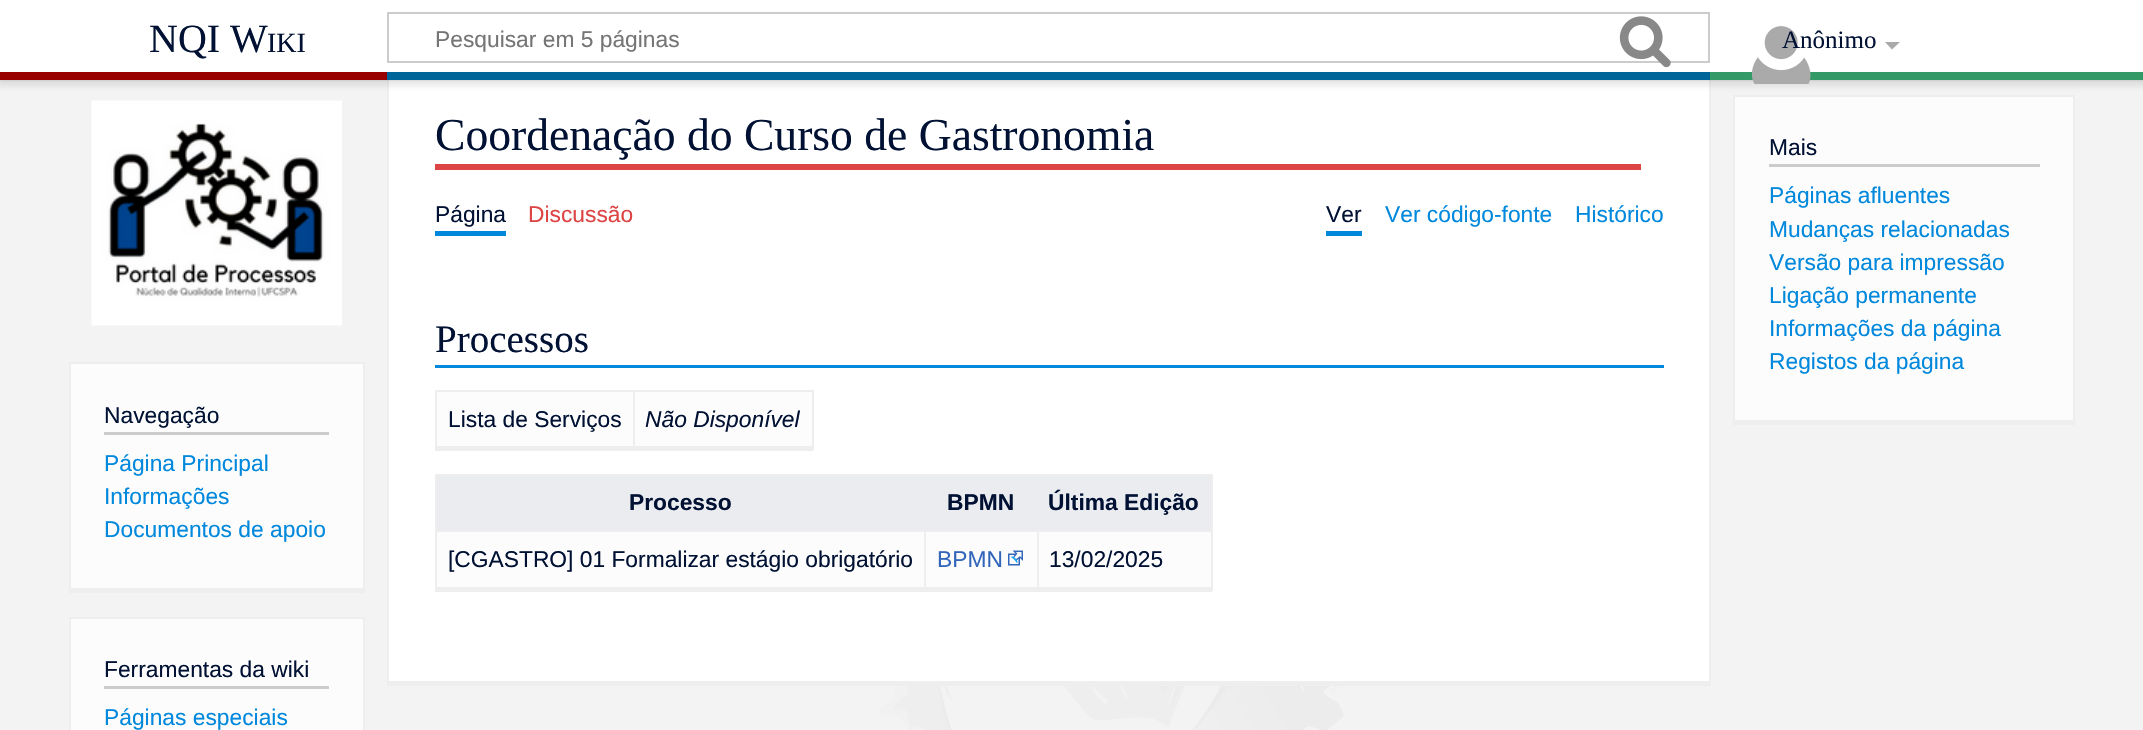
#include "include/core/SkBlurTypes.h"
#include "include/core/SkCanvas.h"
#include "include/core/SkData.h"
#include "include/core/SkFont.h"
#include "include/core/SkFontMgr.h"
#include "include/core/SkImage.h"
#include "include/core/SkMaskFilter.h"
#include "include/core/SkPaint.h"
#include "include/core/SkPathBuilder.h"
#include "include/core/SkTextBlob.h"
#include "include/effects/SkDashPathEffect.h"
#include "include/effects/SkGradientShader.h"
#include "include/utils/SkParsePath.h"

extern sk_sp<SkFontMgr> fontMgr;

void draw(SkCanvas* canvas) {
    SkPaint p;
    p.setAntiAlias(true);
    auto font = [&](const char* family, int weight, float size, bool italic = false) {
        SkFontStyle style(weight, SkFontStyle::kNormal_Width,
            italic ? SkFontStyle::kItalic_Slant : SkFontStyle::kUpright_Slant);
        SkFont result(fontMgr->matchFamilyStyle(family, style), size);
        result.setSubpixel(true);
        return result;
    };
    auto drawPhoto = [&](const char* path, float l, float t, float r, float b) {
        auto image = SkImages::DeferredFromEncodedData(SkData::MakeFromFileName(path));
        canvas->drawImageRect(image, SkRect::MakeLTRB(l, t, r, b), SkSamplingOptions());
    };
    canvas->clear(0xFFF3F3F3);
    {
        const struct { float l, t, r, b; SkColor color; } items[] = {
            {389, 80, 1709, 681, 0xFFFFFFFF},
            {1709, 72, 1711, 686, 0xFFEEEEEE},
            {387, 681, 1710, 686, 0xFFEEEEEE},
            {387, 72, 389, 686, 0xFFEEEEEE},
        };
        for (auto [l, t, r, b, color] : items) {
            p.setColor(color);
            canvas->drawRect(SkRect::MakeLTRB(l, t, r, b), p);
        }
    }
    p.setColor(0x33000000);
    p.setMaskFilter(SkMaskFilter::MakeBlur(kNormal_SkBlurStyle, 1.5f));
    canvas->drawRect(SkRect::MakeLTRB(0, 72, 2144, 80), p);
    p.setMaskFilter(nullptr);
    p.setColor(0x12000000);
    p.setMaskFilter(SkMaskFilter::MakeBlur(kNormal_SkBlurStyle, 2));
    canvas->drawRect(SkRect::MakeLTRB(-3, 74, 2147, 87), p);
    p.setMaskFilter(nullptr);
    p.setColor(0xFFFFFFFF);
    canvas->drawRect(SkRect::MakeLTRB(0, 0, 2143, 72), p);
    auto font1 = font("Liberation Serif", 400, 40);
    p.setColor(0xFF001133);
    canvas->drawString("NQI W", 149, 52, font1, p);
    auto font2 = font("Liberation Serif", 400, 28);
    canvas->drawString("IKI", 267, 52, font2, p);
    p.setStyle(SkPaint::kStroke_Style);
    p.setStrokeWidth(2);
    p.setColor(0xFFCCCCCC);
    canvas->drawRect(SkRect::MakeLTRB(388, 13, 1709, 62), p);
    auto font3 = font("Liberation Sans", 400, 22.8f);
    p.setStyle(SkPaint::kFill_Style);
    p.setColor(0xFF757575);
    canvas->drawString("Pesquisar em 5 páginas", 435, 47, font3, p);
    drawPhoto("media/1.png", 1619, 16, 1671, 68);
    p.setColor(0xFF339966);
    canvas->drawRect(SkRect::MakeLTRB(1710, 72, 2143, 80), p);
    drawPhoto("media/2.png", 1751, 26, 1811, 84);
    auto font4 = font("Liberation Serif", 400, 25);
    p.setColor(0xFF001133);
    canvas->drawString("Anônimo", 1782, 48, font4, p);
    p.setColor(0xFFAAAAAA);
    canvas->drawPath(SkPathBuilder().moveTo(1900, 42).lineTo(1892, 49.5f).lineTo(1885, 42).close().detach(), p);
    p.setColor(0xFF990000);
    canvas->drawRect(SkRect::MakeLTRB(0, 72, 387, 80), p);
    p.setColor(0xFF006699);
    canvas->drawRect(SkRect::MakeLTRB(387, 72, 1710, 80), p);
    drawPhoto("media/3.png", 879, 686, 1356, 730);
    p.setColor(0xFFDD4444);
    canvas->drawRect(SkRect::MakeLTRB(435, 164, 1641, 170), p);
    auto font5 = font("Liberation Serif", 400, 45.6f);
    p.setColor(0xFF001133);
    canvas->drawString("Coordenação do Curso de Gastronomia", 435, 150, font5, p);
    p.setColor(0xFF0088DD);
    canvas->drawRect(SkRect::MakeLTRB(435, 231, 506, 236), p);
    p.setColor(0xFF001133);
    canvas->drawString("Página", 435, 222, font3, p);
    p.setColor(0xFFDD4444);
    canvas->drawString("Discussão", 528, 222, font3, p);
    p.setColor(0xFF0088DD);
    canvas->drawRect(SkRect::MakeLTRB(1326, 231, 1362, 236), p);
    p.setColor(0xFF001133);
    canvas->drawString("Ver", 1326, 222, font3, p);
    p.setColor(0xFF0088DD);
    canvas->drawString("Ver código-fonte", 1385, 222, font3, p);
    canvas->drawString("Histórico", 1575, 222, font3, p);
    canvas->drawRect(SkRect::MakeLTRB(435, 365, 1664, 368), p);
    auto font6 = font("Liberation Serif", 400, 39);
    p.setColor(0xFF001133);
    canvas->drawString("Processos", 435, 352, font6, p);
    {
        const struct { float l, t, r, b; SkColor color; } items[] = {
            {437, 392, 812, 446, 0xFFFCFCFC},
            {435, 390, 813, 392, 0xFFEEEEEE},
            {812, 390, 814, 450, 0xFFEEEEEE},
            {435, 390, 437, 450, 0xFFEEEEEE},
            {633, 390, 635, 449, 0xFFEEEEEE},
            {435, 446, 813, 451, 0xFFEEEEEE},
        };
        for (auto [l, t, r, b, color] : items) {
            p.setColor(color);
            canvas->drawRect(SkRect::MakeLTRB(l, t, r, b), p);
        }
    }
    p.setColor(0xFF001133);
    canvas->drawString("Lista de Serviços", 448, 427, font3, p);
    auto font7 = font("Liberation Sans", 400, 22.8f, true);
    canvas->drawString("Não Disponível", 645, 427, font7, p);
    {
        const struct { float l, t, r, b; SkColor color; } items[] = {
            {437, 532, 1211, 587, 0xFFFCFCFC},
            {435, 474, 1212, 476, 0xFFEEEEEE},
            {1211, 474, 1213, 591, 0xFFEEEEEE},
            {435, 474, 437, 591, 0xFFEEEEEE},
            {1037, 530, 1212, 532, 0xFFEEEEEE},
            {1037, 530, 1039, 590, 0xFFEEEEEE},
            {924, 530, 1038, 532, 0xFFEEEEEE},
            {924, 530, 926, 590, 0xFFEEEEEE},
            {435, 587, 1212, 592, 0xFFEEEEEE},
            {437, 476, 1211, 530, 0xFFEAECF0},
        };
        for (auto [l, t, r, b, color] : items) {
            p.setColor(color);
            canvas->drawRect(SkRect::MakeLTRB(l, t, r, b), p);
        }
    }
    auto font8 = font("Liberation Sans", 700, 22.8f);
    p.setColor(0xFF001133);
    {
        const struct { const char* s; float x, y; } items[] = {
            {"Processo", 629, 510},
            {"BPMN", 947, 510},
            {"Última Edição", 1048, 510},
        };
        for (auto [s, x, y] : items) {
            canvas->drawString(s, x, y, font8, p);
        }
    }
    p.setColor(0xFFEEEEEE);
    canvas->drawRect(SkRect::MakeLTRB(435, 530, 926, 532), p);
    p.setColor(0xFF001133);
    canvas->drawString("[CGASTRO] 01 Formalizar estágio obrigatório", 448, 567, font3, p);
    p.setColor(0xFF3366BB);
    canvas->drawString("BPMN", 937, 567, font3, p);
    drawPhoto("media/4.png", 1008, 550, 1023, 566);
    p.setColor(0xFF001133);
    canvas->drawString("13/02/2025", 1049, 567, font3, p);
    {
        const struct { float l, t, r, b; SkColor color; } items[] = {
            {1735, 97, 2073, 420, 0xFFFCFCFC},
            {1733, 95, 2075, 97, 0xFFEEEEEE},
            {2073, 95, 2075, 425, 0xFFEEEEEE},
            {1733, 420, 2075, 425, 0xFFEEEEEE},
            {1733, 95, 1735, 425, 0xFFEEEEEE},
            {1769, 164, 2040, 167, 0xFFCCCCCC},
        };
        for (auto [l, t, r, b, color] : items) {
            p.setColor(color);
            canvas->drawRect(SkRect::MakeLTRB(l, t, r, b), p);
        }
    }
    p.setColor(0xFF001133);
    canvas->drawString("Mais", 1769, 155, font3, p);
    p.setColor(0xFF0088DD);
    {
        const struct { const char* s; float x, y; } items[] = {
            {"Páginas afluentes", 1769, 203},
            {"Mudanças relacionadas", 1769, 237},
            {"Versão para impressão", 1769, 270},
            {"Ligação permanente", 1769, 303},
            {"Informações da página", 1769, 336},
            {"Registos da página", 1769, 369},
        };
        for (auto [s, x, y] : items) {
            canvas->drawString(s, x, y, font3, p);
        }
    }
    drawPhoto("media/5.png", 91, 100, 342, 326);
    {
        const struct { float l, t, r, b; SkColor color; } items[] = {
            {71, 364, 363, 588, 0xFFFCFCFC},
            {69, 362, 365, 364, 0xFFEEEEEE},
            {363, 362, 365, 593, 0xFFEEEEEE},
            {69, 588, 365, 593, 0xFFEEEEEE},
            {69, 362, 71, 593, 0xFFEEEEEE},
            {104, 432, 329, 435, 0xFFCCCCCC},
        };
        for (auto [l, t, r, b, color] : items) {
            p.setColor(color);
            canvas->drawRect(SkRect::MakeLTRB(l, t, r, b), p);
        }
    }
    p.setColor(0xFF001133);
    canvas->drawString("Navegação", 104, 423, font3, p);
    p.setColor(0xFF0088DD);
    {
        const struct { const char* s; float x, y; } items[] = {
            {"Página Principal", 104, 471},
            {"Informações", 104, 504},
            {"Documentos de apoio", 104, 537},
        };
        for (auto [s, x, y] : items) {
            canvas->drawString(s, x, y, font3, p);
        }
    }
    {
        const struct { float l, t, r, b; SkColor color; } items[] = {
            {71, 619, 363, 730, 0xFFFCFCFC},
            {69, 617, 365, 619, 0xFFEEEEEE},
            {363, 617, 365, 730, 0xFFEEEEEE},
            {69, 617, 71, 730, 0xFFEEEEEE},
            {104, 686, 329, 689, 0xFFCCCCCC},
        };
        for (auto [l, t, r, b, color] : items) {
            p.setColor(color);
            canvas->drawRect(SkRect::MakeLTRB(l, t, r, b), p);
        }
    }
    p.setColor(0xFF001133);
    canvas->drawString("Ferramentas da wiki", 104, 677, font3, p);
    p.setColor(0xFF0088DD);
    canvas->drawString("Páginas especiais", 104, 725, font3, p);
}
